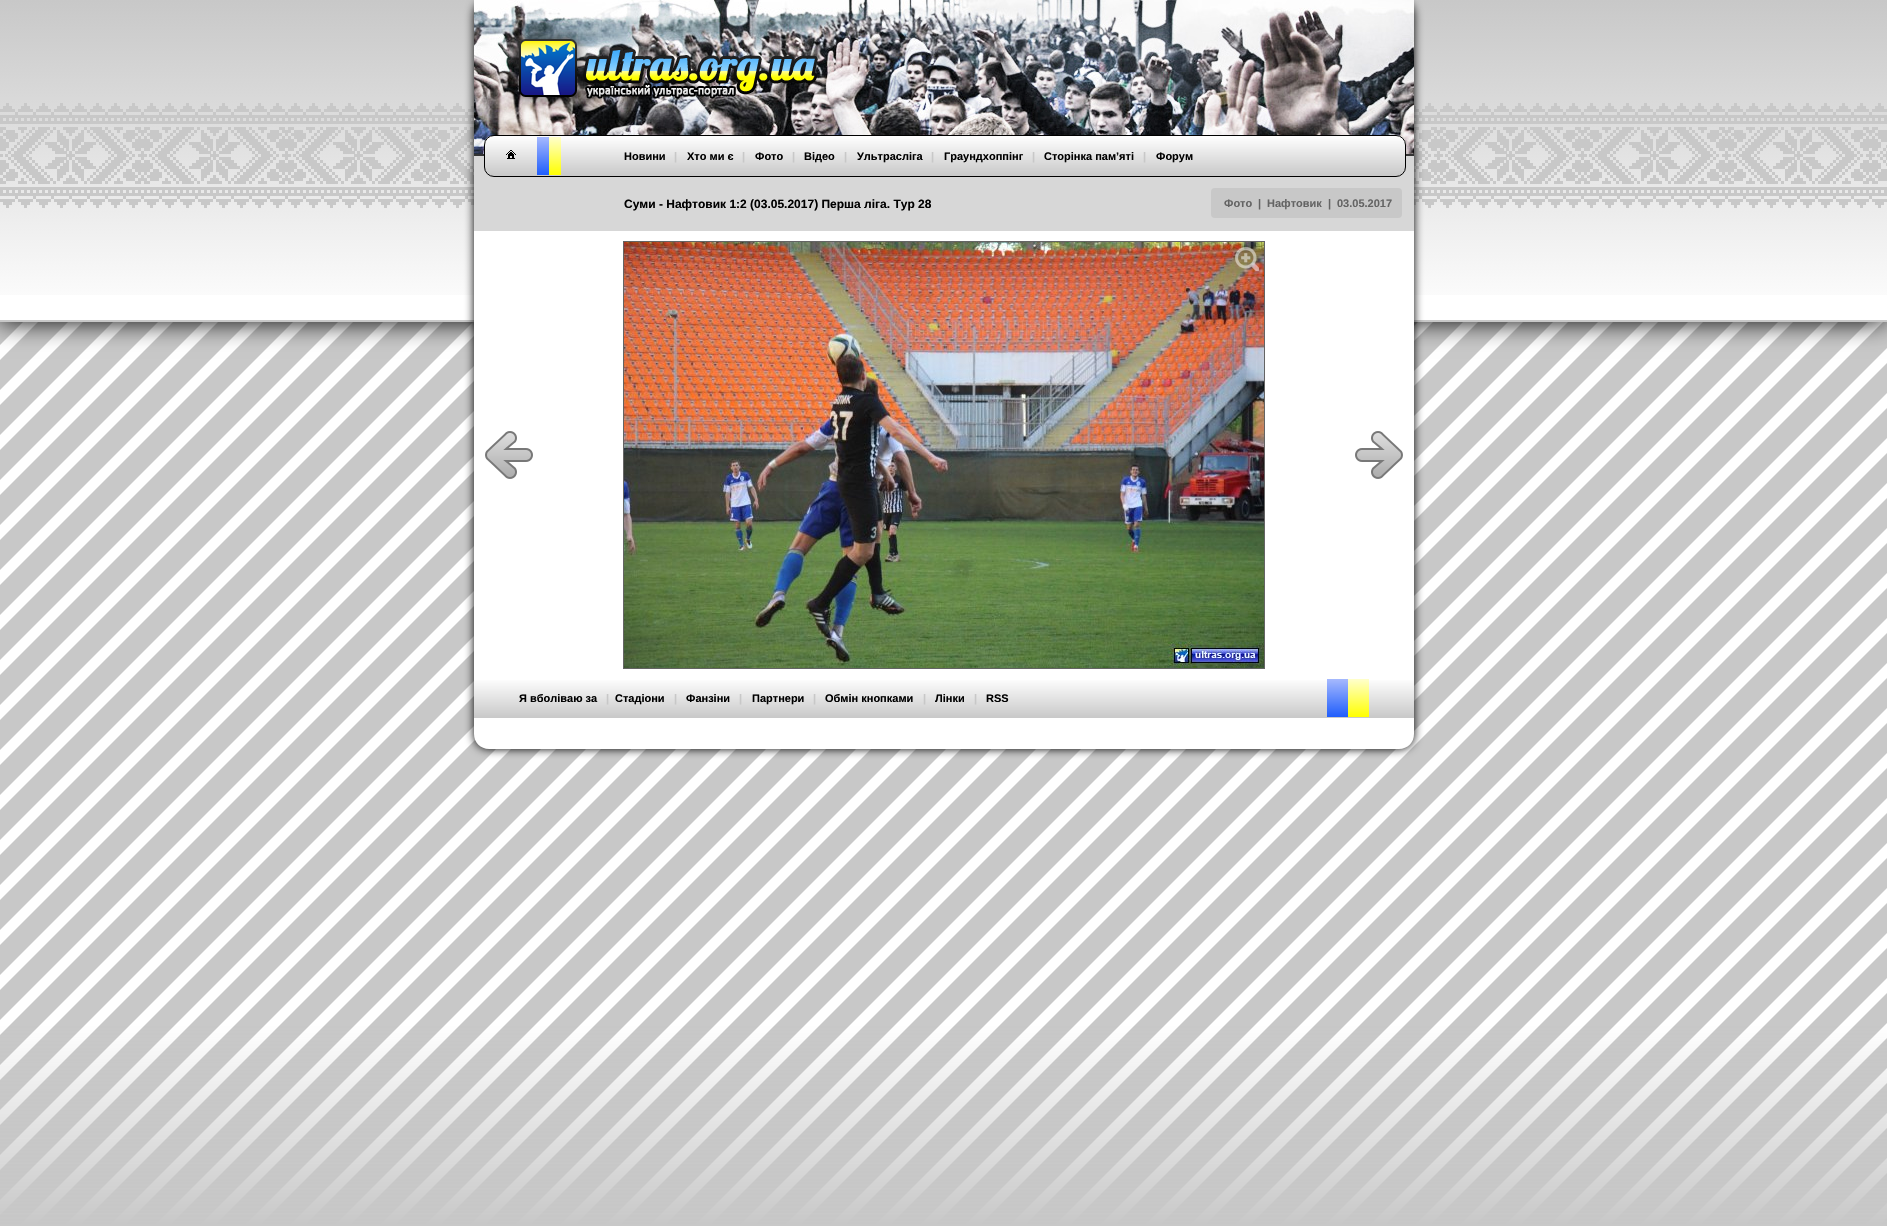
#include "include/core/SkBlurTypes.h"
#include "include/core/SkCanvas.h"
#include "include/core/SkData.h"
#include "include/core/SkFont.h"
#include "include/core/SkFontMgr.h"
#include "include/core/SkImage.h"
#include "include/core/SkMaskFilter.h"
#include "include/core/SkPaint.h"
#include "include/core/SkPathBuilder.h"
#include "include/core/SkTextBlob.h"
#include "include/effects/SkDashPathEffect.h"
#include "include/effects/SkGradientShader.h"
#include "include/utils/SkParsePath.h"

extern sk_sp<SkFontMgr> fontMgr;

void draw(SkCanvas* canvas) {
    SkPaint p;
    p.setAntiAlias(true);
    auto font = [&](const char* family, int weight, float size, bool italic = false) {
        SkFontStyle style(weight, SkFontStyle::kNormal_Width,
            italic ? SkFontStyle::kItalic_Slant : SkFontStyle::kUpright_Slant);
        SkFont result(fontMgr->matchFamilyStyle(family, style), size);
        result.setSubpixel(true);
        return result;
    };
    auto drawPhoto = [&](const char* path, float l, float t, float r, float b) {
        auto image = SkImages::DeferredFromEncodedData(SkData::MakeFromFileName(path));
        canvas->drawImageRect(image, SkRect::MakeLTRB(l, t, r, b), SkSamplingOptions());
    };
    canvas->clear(0xFFFFFFFF);
    drawPhoto("media/1.png", 0, 322, 1887, 1226);
    p.setColor(0xFF000000);
    p.setMaskFilter(SkMaskFilter::MakeBlur(kNormal_SkBlurStyle, 12.5f));
    canvas->drawRect(SkRect::MakeLTRB(0, 0, 1887, 322), p);
    p.setMaskFilter(nullptr);
    p.setColor(0xFFFFFFFF);
    canvas->drawRect(SkRect::MakeLTRB(0, 295, 1887, 320), p);
    drawPhoto("media/2.png", 0, 0, 1887, 295);
    p.setColor(0xFFC8C8C8);
    canvas->drawRect(SkRect::MakeLTRB(0, 320, 1887, 322), p);
    p.setColor(0xFF000000);
    p.setMaskFilter(SkMaskFilter::MakeBlur(kNormal_SkBlurStyle, 5));
    canvas->drawRoundRect(SkRect::MakeLTRB(474, 0, 1414, 749), 15, 15, p);
    p.setMaskFilter(nullptr);
    p.setColor(0xFFFFFFFF);
    canvas->drawPath(SkPathBuilder().moveTo(474, 0).lineTo(1414, 0).lineTo(1414, 734).cubicTo(1414, 742.5f, 1407.5f, 749, 1399, 749).lineTo(489, 749).cubicTo(480.5f, 749, 474, 742.5f, 474, 734).close().detach(), p);
    drawPhoto("media/3.png", 474, 0, 1414, 154);
    p.setColor(0xFF333333);
    canvas->drawRect(SkRect::MakeLTRB(474, 154, 1414, 156), p);
    drawPhoto("media/4.png", 508, 28, 818, 108);
    p.setColor(0xFFD7D7D7);
    canvas->drawRect(SkRect::MakeLTRB(474, 156, 1414, 231), p);
    canvas->save();
    canvas->clipPath(SkPathBuilder().moveTo(494, 135).lineTo(1396, 135).cubicTo(1401.5f, 135, 1406, 139.5f, 1406, 145).lineTo(1406, 167).cubicTo(1406, 172.5f, 1401.5f, 177, 1396, 177).lineTo(494, 177).cubicTo(488.5f, 177, 484, 172.5f, 484, 167).lineTo(484, 145).cubicTo(484, 139.5f, 488.5f, 135, 494, 135).close().detach(), true);
    {
        const SkColor colors[] = {0xFFC8C8C8, 0xFFFFFFFF};
        const float stops[] = {0, 1};
        const SkPoint ends[] = {{945, 176}, {945, 136}};
        p.setShader(SkGradientShader::MakeLinear(ends, colors, stops, 2, SkTileMode::kClamp));
        p.setAlpha(255);
    }
    canvas->drawRect(SkRect::MakeLTRB(484, 136, 1406, 176), p);
    canvas->restore();
    p.setStyle(SkPaint::kStroke_Style);
    p.setStrokeWidth(1);
    p.setShader(nullptr);
    p.setColor(0xFF000000);
    canvas->drawRoundRect(SkRect::MakeLTRB(484.5f, 135.5f, 1405.5f, 176.5f), 9.5f, 9.5f, p);
    drawPhoto("media/5.png", 506, 150, 516, 159);
    p.setStyle(SkPaint::kFill_Style);
    {
        const SkColor colors[] = {0xFFA6B9FD, 0xFF1F5DFC};
        const float stops[] = {0, 1};
        const SkPoint ends[] = {{543, 137}, {543, 175}};
        p.setShader(SkGradientShader::MakeLinear(ends, colors, stops, 2, SkTileMode::kClamp));
        p.setAlpha(255);
    }
    canvas->drawRect(SkRect::MakeLTRB(537, 137, 549, 175), p);
    {
        const SkColor colors[] = {0xFFFFFFCC, 0xFFFFFF00};
        const float stops[] = {0, 1};
        const SkPoint ends[] = {{555, 137}, {555, 175}};
        p.setShader(SkGradientShader::MakeLinear(ends, colors, stops, 2, SkTileMode::kClamp));
        p.setAlpha(255);
    }
    canvas->drawRect(SkRect::MakeLTRB(549, 137, 561, 175), p);
    auto font1 = font("Liberation Sans", 700, 11);
    p.setShader(nullptr);
    p.setColor(0xFF000000);
    canvas->drawString("Новини", 624, 160, font1, p);
    p.setColor(0xFFC8C8C8);
    canvas->drawString("|", 674, 160, font1, p);
    p.setColor(0xFF000000);
    canvas->drawString("Хто ми є", 687, 160, font1, p);
    p.setColor(0xFFC8C8C8);
    canvas->drawString("|", 742, 160, font1, p);
    p.setColor(0xFF000000);
    canvas->drawString("Фото", 755, 160, font1, p);
    p.setColor(0xFFC8C8C8);
    canvas->drawString("|", 792, 160, font1, p);
    p.setColor(0xFF000000);
    canvas->drawString("Відео", 804, 160, font1, p);
    p.setColor(0xFFC8C8C8);
    canvas->drawString("|", 844, 160, font1, p);
    p.setColor(0xFF000000);
    canvas->drawString("Ультрасліга", 857, 160, font1, p);
    p.setColor(0xFFC8C8C8);
    canvas->drawString("|", 931, 160, font1, p);
    p.setColor(0xFF000000);
    canvas->drawString("Граундхоппінг", 944, 160, font1, p);
    p.setColor(0xFFC8C8C8);
    canvas->drawString("|", 1032, 160, font1, p);
    p.setColor(0xFF000000);
    canvas->drawString("Сторінка пам’яті", 1044, 160, font1, p);
    p.setColor(0xFFC8C8C8);
    canvas->drawString("|", 1143, 160, font1, p);
    p.setColor(0xFF000000);
    canvas->drawString("Форум", 1156, 160, font1, p);
    drawPhoto("media/6.png", 485, 431, 533, 479);
    p.setStyle(SkPaint::kStroke_Style);
    p.setColor(0xFF646464);
    canvas->drawRect(SkRect::MakeLTRB(623.5f, 241.5f, 1264.5f, 668.5f), p);
    drawPhoto("media/7.png", 624, 242, 1264, 668);
    drawPhoto("media/8.png", 1235, 247, 1259, 271);
    drawPhoto("media/9.png", 1355, 431, 1403, 479);
    p.setStyle(SkPaint::kFill_Style);
    {
        const SkColor colors[] = {0xFFC8C8C8, 0xFFFFFFFF};
        const float stops[] = {0, 1};
        const SkPoint ends[] = {{944, 718}, {944, 678}};
        p.setShader(SkGradientShader::MakeLinear(ends, colors, stops, 2, SkTileMode::kClamp));
        p.setAlpha(255);
    }
    canvas->drawRect(SkRect::MakeLTRB(474, 680, 1414, 718), p);
    p.setShader(nullptr);
    p.setColor(0xFF000000);
    canvas->drawString("Я вболіваю за", 519, 702, font1, p);
    p.setColor(0xFFC8C8C8);
    canvas->drawString("|", 606, 702, font1, p);
    p.setColor(0xFF000000);
    canvas->drawString("Стадіони", 615, 702, font1, p);
    p.setColor(0xFFC8C8C8);
    canvas->drawString("|", 674, 702, font1, p);
    p.setColor(0xFF000000);
    canvas->drawString("Фанзіни", 686, 702, font1, p);
    p.setColor(0xFFC8C8C8);
    canvas->drawString("|", 739, 702, font1, p);
    p.setColor(0xFF000000);
    canvas->drawString("Партнери", 752, 702, font1, p);
    p.setColor(0xFFC8C8C8);
    canvas->drawString("|", 813, 702, font1, p);
    p.setColor(0xFF000000);
    canvas->drawString("Обмін кнопками", 825, 702, font1, p);
    p.setColor(0xFFC8C8C8);
    canvas->drawString("|", 923, 702, font1, p);
    p.setColor(0xFF000000);
    canvas->drawString("Лінки", 935, 702, font1, p);
    p.setColor(0xFFC8C8C8);
    canvas->drawString("|", 974, 702, font1, p);
    p.setColor(0xFF000000);
    canvas->drawString("RSS", 986, 702, font1, p);
    {
        const SkColor colors[] = {0xFFA6B9FD, 0xFF1F5DFC};
        const float stops[] = {0, 1};
        const SkPoint ends[] = {{1338, 679}, {1338, 717}};
        p.setShader(SkGradientShader::MakeLinear(ends, colors, stops, 2, SkTileMode::kClamp));
        p.setAlpha(255);
    }
    canvas->drawRect(SkRect::MakeLTRB(1327, 679, 1348, 717), p);
    {
        const SkColor colors[] = {0xFFFFFFCC, 0xFFFFFF00};
        const float stops[] = {0, 1};
        const SkPoint ends[] = {{1359, 679}, {1359, 717}};
        p.setShader(SkGradientShader::MakeLinear(ends, colors, stops, 2, SkTileMode::kClamp));
        p.setAlpha(255);
    }
    canvas->drawRect(SkRect::MakeLTRB(1348, 679, 1369, 717), p);
    auto font2 = font("Liberation Sans", 700, 12);
    p.setShader(nullptr);
    p.setColor(0xFF000000);
    canvas->drawString("Суми - Нафтовик 1:2 (03.05.2017) Перша ліга. Тур 28", 624, 208, font2, p);
    p.setColor(0xFFC8C8C8);
    canvas->drawRoundRect(SkRect::MakeLTRB(1211, 188, 1402, 218), 4, 4, p);
    p.setColor(0xFF646464);
    {
        const struct { const char* s; float x, y; } items[] = {
            {"Фото", 1224, 207},
            {"|", 1258, 207},
            {"Нафтовик", 1267, 207},
            {"|", 1328, 207},
            {"03.05.2017", 1337, 207},
        };
        for (auto [s, x, y] : items) {
            canvas->drawString(s, x, y, font1, p);
        }
    }
}
